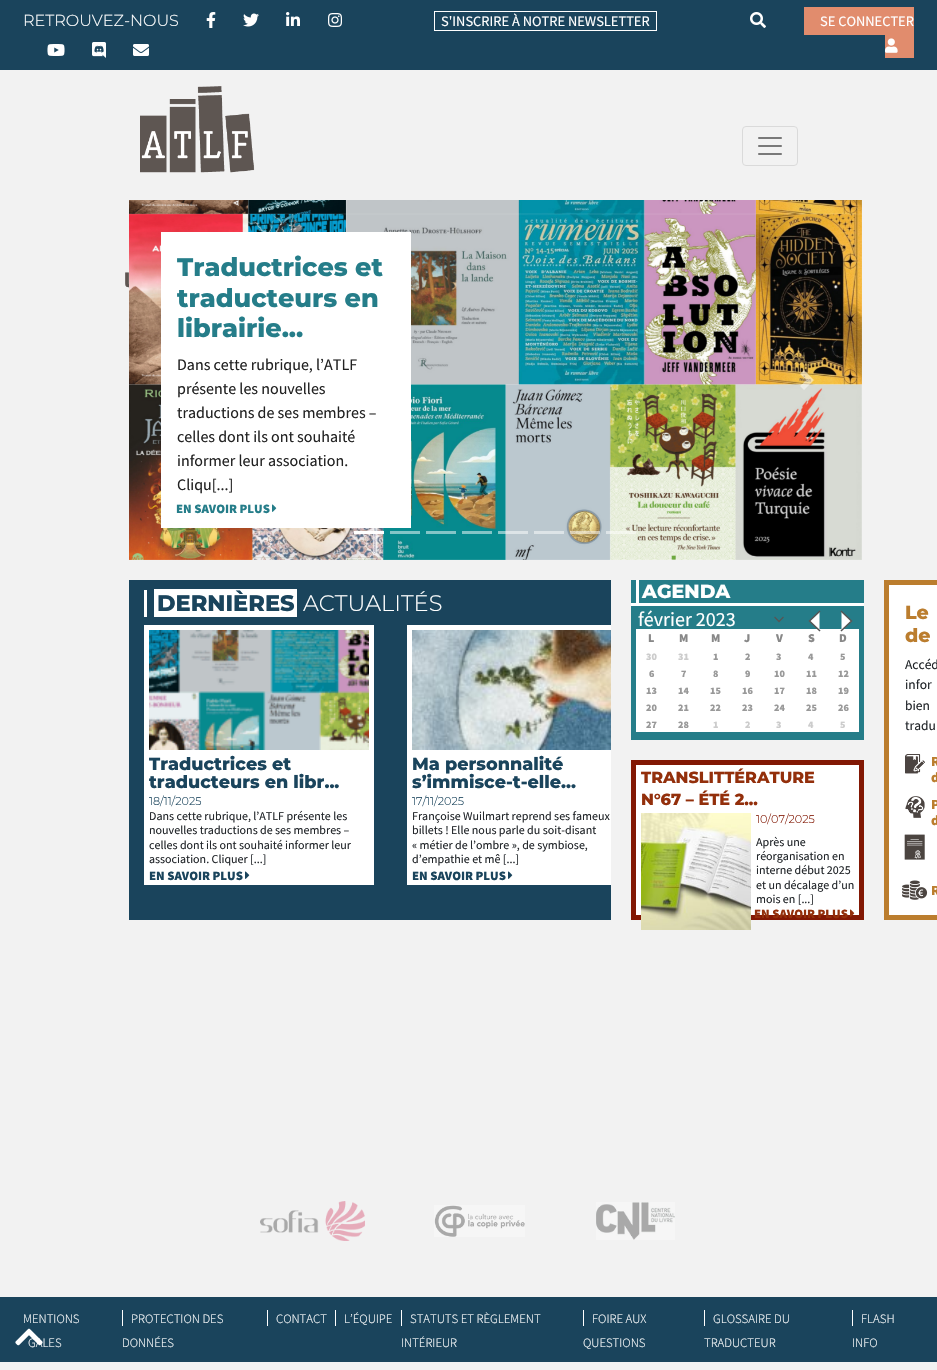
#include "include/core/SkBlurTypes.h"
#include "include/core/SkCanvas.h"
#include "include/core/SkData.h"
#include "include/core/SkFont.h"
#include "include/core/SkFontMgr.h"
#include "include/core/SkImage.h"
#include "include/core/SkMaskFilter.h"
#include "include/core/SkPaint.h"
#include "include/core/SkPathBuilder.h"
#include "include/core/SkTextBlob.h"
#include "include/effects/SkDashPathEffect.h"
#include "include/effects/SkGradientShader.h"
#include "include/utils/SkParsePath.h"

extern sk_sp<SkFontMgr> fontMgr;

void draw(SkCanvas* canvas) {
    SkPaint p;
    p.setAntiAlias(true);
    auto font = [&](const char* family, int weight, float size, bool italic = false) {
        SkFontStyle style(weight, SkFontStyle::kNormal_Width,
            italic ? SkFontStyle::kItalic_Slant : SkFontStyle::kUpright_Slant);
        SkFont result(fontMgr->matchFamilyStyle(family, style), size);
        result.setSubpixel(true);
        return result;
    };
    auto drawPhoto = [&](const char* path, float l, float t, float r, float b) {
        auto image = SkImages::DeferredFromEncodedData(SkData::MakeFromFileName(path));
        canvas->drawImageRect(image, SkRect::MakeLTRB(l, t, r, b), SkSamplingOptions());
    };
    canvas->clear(0xFFF2F2F2);
    p.setColor(0xFF1A445C);
    canvas->drawRect(SkRect::MakeLTRB(0, 0, 937, 70), p);
    auto font1 = font("Montserrat", 300, 16);
    p.setColor(0xFFFFFFFF);
    canvas->drawString("RETROUVEZ-NOUS", 23, 26, font1, p);
    drawPhoto("media/1.png", 206, 12, 216, 28);
    drawPhoto("media/2.png", 243, 13, 259, 27);
    drawPhoto("media/3.png", 286, 12, 300, 26);
    drawPhoto("media/4.png", 328, 13, 342, 27);
    drawPhoto("media/5.png", 47, 44, 65, 56);
    drawPhoto("media/6.png", 92, 42, 106, 58);
    drawPhoto("media/7.png", 133, 44, 149, 56);
    p.setStyle(SkPaint::kStroke_Style);
    p.setStrokeWidth(1);
    canvas->drawRect(SkRect::MakeLTRB(434.5f, 11.5f, 656.5f, 30.5f), p);
    auto font2 = font("Source Sans Pro", 400, 14.4f);
    p.setStyle(SkPaint::kFill_Style);
    canvas->drawString("S'INSCRIRE À NOTRE NEWSLETTER", 441, 26, font2, p);
    drawPhoto("media/8.png", 750, 12, 766, 28);
    p.setColor(0xFFE18C6D);
    canvas->drawRect(SkRect::MakeLTRB(804, 7, 914, 35), p);
    canvas->drawRect(SkRect::MakeLTRB(885, 35, 914, 58), p);
    p.setColor(0xFFFFFFFF);
    canvas->drawString("SE CONNECTER", 820, 26, font2, p);
    drawPhoto("media/9.png", 885, 38, 898, 53);
    p.setStyle(SkPaint::kStroke_Style);
    p.setColor(0xFFDADADA);
    canvas->drawRoundRect(SkRect::MakeLTRB(742.5f, 126.5f, 797.5f, 165.5f), 3.5f, 3.5f, p);
    drawPhoto("media/10.png", 758, 137, 782, 155);
    drawPhoto("media/11.png", 140, 86, 255, 173);
    auto font3 = font("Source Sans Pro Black", 900, 21);
    p.setStyle(SkPaint::kFill_Style);
    p.setColor(0xFF5E5652);
    canvas->drawString("l", 124, 287, font3, p);
    drawPhoto("media/12.png", 129, 200, 862, 560);
    p.setColor(0xFFFFFFFF);
    canvas->drawRect(SkRect::MakeLTRB(161, 232, 411, 528), p);
    auto font4 = font("Montserrat", 800, 25.5f);
    p.setColor(0xFF257D89);
    {
        const struct { const char* s; float x, y; } items[] = {
            {"Traductrices et", 177, 276},
            {"traducteurs en", 177, 307},
            {"librairie...", 177, 337},
        };
        for (auto [s, x, y] : items) {
            canvas->drawString(s, x, y, font4, p);
        }
    }
    auto font5 = font("Source Sans Pro", 400, 16);
    p.setColor(0xFF222222);
    {
        const struct { const char* s; float x, y; } items[] = {
            {"Dans cette rubrique, l’ATLF", 177, 370},
            {"présente les nouvelles", 177, 394},
            {"traductions de ses membres –", 177, 418},
            {"celles dont ils ont souhaité", 177, 442},
            {"informer leur association.", 177, 466},
            {"Cliqu[...]", 177, 490},
        };
        for (auto [s, x, y] : items) {
            canvas->drawString(s, x, y, font5, p);
        }
    }
    auto font6 = font("Source Sans Pro Black", 900, 12.75f);
    p.setColor(0xFF257D89);
    canvas->drawString("EN SAVOIR PLUS", 176, 513, font6, p);
    drawPhoto("media/13.png", 272, 504, 277, 512);
    p.setColor(0x80FFFFFF);
    canvas->drawPath(SkPathBuilder().moveTo(804, 370).lineTo(800, 374).lineTo(806.5f, 380).lineTo(800, 386).lineTo(804, 390).lineTo(814, 380).close().detach(), p);
    {
        const struct { float l, t, r, b; SkColor color; } items[] = {
            {354, 531, 384, 534, 0xFFFFFFFF},
            {390, 531, 420, 534, 0xFF83C5C7},
            {426, 531, 456, 534, 0xFF83C5C7},
            {462, 531, 492, 534, 0x80FFFFFF},
            {498, 531, 528, 534, 0x80FFFFFF},
            {534, 531, 564, 534, 0xFFDDE4E7},
            {570, 531, 600, 534, 0x80FFFFFF},
            {606, 531, 636, 534, 0x80FFFFFF},
            {129, 580, 611, 920, 0xFF1A445C},
            {144, 590, 147, 617, 0xFFFFFFFF},
            {154, 589, 297, 617, 0xFFFFFFFF},
        };
        for (auto [l, t, r, b, color] : items) {
            p.setColor(color);
            canvas->drawRect(SkRect::MakeLTRB(l, t, r, b), p);
        }
    }
    auto font7 = font("Montserrat", 800, 22.5f);
    p.setColor(0xFF1A445C);
    canvas->drawString("DERNIÈRES", 157, 611, font7, p);
    auto font8 = font("Montserrat", 300, 22.5f);
    p.setColor(0xFFFFFFFF);
    canvas->drawString("ACTUALITÉS", 303, 611, font8, p);
    canvas->drawRect(SkRect::MakeLTRB(144, 625, 374, 885), p);
    drawPhoto("media/14.png", 149, 630, 369, 750);
    auto font9 = font("Montserrat", 800, 17.6f);
    p.setColor(0xFF1A445C);
    canvas->drawString("Traductrices et", 149, 770, font9, p);
    canvas->drawString("traducteurs en libr...", 149, 788, font9, p);
    auto font10 = font("Montserrat", 300, 11.25f);
    canvas->drawString("18/11/2025", 149, 805, font10, p);
    auto font11 = font("Source Sans Pro", 400, 12);
    p.setColor(0xFF212529);
    {
        const struct { const char* s; float x, y; } items[] = {
            {"Dans cette rubrique, l’ATLF présente les", 149, 820},
            {"nouvelles traductions de ses membres –", 149, 834},
            {"celles dont ils ont souhaité informer leur", 149, 849},
            {"association. Cliquer [...]", 149, 863},
        };
        for (auto [s, x, y] : items) {
            canvas->drawString(s, x, y, font11, p);
        }
    }
    p.setColor(0xFF1A445C);
    canvas->drawString("EN SAVOIR PLUS", 149, 880, font6, p);
    drawPhoto("media/15.png", 245, 871, 250, 879);
    p.setColor(0xFFFFFFFF);
    canvas->drawRect(SkRect::MakeLTRB(407, 625, 611, 885), p);
    drawPhoto("media/16.png", 412, 630, 611, 750);
    p.setColor(0xFF1A445C);
    canvas->drawString("Ma personnalité", 412, 770, font9, p);
    canvas->drawString("s’immisce-t-elle...", 412, 788, font9, p);
    canvas->drawString("17/11/2025", 412, 805, font10, p);
    p.setColor(0xFF212529);
    {
        const struct { const char* s; float x, y; } items[] = {
            {"Françoise Wuilmart reprend ses fameux", 412, 820},
            {"billets ! Elle nous parle du soit-disant", 412, 834},
            {"« métier de l’ombre », de symbiose,", 412, 849},
            {"d’empathie et mê [...]", 412, 863},
        };
        for (auto [s, x, y] : items) {
            canvas->drawString(s, x, y, font11, p);
        }
    }
    p.setColor(0xFF1A445C);
    canvas->drawString("EN SAVOIR PLUS", 412, 880, font6, p);
    drawPhoto("media/15.png", 508, 871, 513, 879);
    {
        const struct { float l, t, r, b; SkColor color; } items[] = {
            {631, 580, 864, 740, 0xFF257D89},
            {631, 603, 864, 606, 0xFFFFFFFF},
            {636, 580, 639, 604, 0xFFFFFFFF},
        };
        for (auto [l, t, r, b, color] : items) {
            p.setColor(color);
            canvas->drawRect(SkRect::MakeLTRB(l, t, r, b), p);
        }
    }
    auto font12 = font("Montserrat", 800, 19);
    canvas->drawString("AGENDA", 642, 598, font12, p);
    p.setStyle(SkPaint::kStroke_Style);
    p.setStrokeWidth(1.3f);
    p.setStrokeCap(SkPaint::kSquare_Cap);
    p.setColor(0xFF555555);
    canvas->drawPath(SkPathBuilder().moveTo(775, 617.5f).lineTo(779, 621.5f).lineTo(783, 617.5f).detach(), p);
    auto font13 = font("Source Sans Pro", 400, 20);
    p.setStyle(SkPaint::kFill_Style);
    p.setColor(0xFFFFFFFF);
    canvas->drawString("février 2023", 638, 626, font13, p);
    canvas->drawRect(SkRect::MakeLTRB(636, 629, 859, 732), p);
    canvas->drawPath(SkPathBuilder().moveTo(819.5f, 630.5f).lineTo(809.5f, 621).lineTo(819.5f, 611.5f).detach(), p);
    p.setStyle(SkPaint::kStroke_Style);
    p.setStrokeWidth(1.5f);
    p.setColor(0xFF555555);
    canvas->drawPath(SkPathBuilder().moveTo(819.5f, 630.5f).lineTo(809.5f, 621).lineTo(819.5f, 611.5f).detach(), p);
    p.setStyle(SkPaint::kFill_Style);
    p.setColor(0xFFFFFFFF);
    canvas->drawPath(SkPathBuilder().moveTo(841.5f, 630.5f).lineTo(851.5f, 621).lineTo(841.5f, 611.5f).detach(), p);
    p.setStyle(SkPaint::kStroke_Style);
    p.setColor(0xFF555555);
    canvas->drawPath(SkPathBuilder().moveTo(841.5f, 630.5f).lineTo(851.5f, 621).lineTo(841.5f, 611.5f).detach(), p);
    auto font14 = font("Source Sans Pro Black", 900, 12);
    p.setStyle(SkPaint::kFill_Style);
    p.setColor(0xFF888888);
    {
        const struct { const char* s; float x, y; } items[] = {
            {"L", 648, 642},
            {"M", 679, 642},
            {"M", 711, 642},
            {"J", 744, 642},
            {"V", 776, 642},
            {"S", 808, 642},
            {"D", 839, 642},
        };
        for (auto [s, x, y] : items) {
            canvas->drawString(s, x, y, font14, p);
        }
    }
    auto font15 = font("Source Sans Pro Black", 900, 10);
    p.setColor(0xFFCCCCCC);
    canvas->drawString("30", 646, 660, font15, p);
    canvas->drawString("31", 678, 660, font15, p);
    p.setColor(0xFF999999);
    {
        const struct { const char* s; float x, y; } items[] = {
            {"1", 713, 660},
            {"2", 745, 660},
            {"3", 776, 660},
            {"4", 808, 660},
            {"5", 840, 660},
            {"6", 649, 677},
            {"7", 681, 677},
            {"8", 713, 677},
            {"9", 745, 677},
            {"10", 774, 677},
            {"11", 806, 677},
            {"12", 838, 677},
            {"13", 646, 694},
            {"14", 678, 694},
            {"15", 710, 694},
            {"16", 742, 694},
            {"17", 774, 694},
            {"18", 806, 694},
            {"19", 838, 694},
            {"20", 646, 711},
            {"21", 678, 711},
            {"22", 710, 711},
            {"23", 742, 711},
            {"24", 774, 711},
            {"25", 806, 711},
            {"26", 838, 711},
            {"27", 646, 728},
            {"28", 678, 728},
        };
        for (auto [s, x, y] : items) {
            canvas->drawString(s, x, y, font15, p);
        }
    }
    p.setColor(0xFFCCCCCC);
    {
        const struct { const char* s; float x, y; } items[] = {
            {"1", 713, 728},
            {"2", 745, 728},
            {"3", 776, 728},
            {"4", 808, 728},
            {"5", 840, 728},
        };
        for (auto [s, x, y] : items) {
            canvas->drawString(s, x, y, font15, p);
        }
    }
    p.setColor(0xFF821804);
    canvas->drawRect(SkRect::MakeLTRB(631, 760, 864, 920), p);
    p.setColor(0xFFFFFFFF);
    canvas->drawRect(SkRect::MakeLTRB(636, 765, 859, 915), p);
    auto font16 = font("Montserrat", 800, 16);
    p.setColor(0xFF932F0B);
    canvas->drawString("TRANSLITTÉRATURE", 641, 783, font16, p);
    canvas->drawString("N°67 – ÉTÉ 2...", 641, 805, font16, p);
    drawPhoto("media/17.png", 641, 813, 751, 930);
    p.setColor(0xFF821804);
    canvas->drawString("10/07/2025", 756, 823, font10, p);
    p.setColor(0xFF212529);
    {
        const struct { const char* s; float x, y; } items[] = {
            {"Après une", 756, 846},
            {"réorganisation en", 756, 860},
            {"interne début 2025", 756, 874},
            {"et un décalage d’un", 756, 889},
            {"mois en [...]", 756, 903},
        };
        for (auto [s, x, y] : items) {
            canvas->drawString(s, x, y, font11, p);
        }
    }
    p.setColor(0xFF932F0B);
    canvas->drawString("EN SAVOIR PLUS", 754, 918, font6, p);
    drawPhoto("media/18.png", 850, 909, 855, 917);
    p.setColor(0xFFBB7D2E);
    canvas->drawRect(SkRect::MakeLTRB(884, 580, 937, 920), p);
    p.setColor(0xFFFFFFFF);
    canvas->drawRect(SkRect::MakeLTRB(889, 585, 937, 915), p);
    p.setColor(0xFFBB7D2E);
    canvas->drawString("Le", 905, 619, font12, p);
    canvas->drawString("de", 905, 642, font12, p);
    auto font17 = font("Source Sans Pro", 400, 13.5f);
    p.setColor(0xFF212529);
    {
        const struct { const char* s; float x, y; } items[] = {
            {"Accéd", 905, 669},
            {"infor", 905, 689},
            {"bien", 905, 710},
            {"tradu", 905, 730},
        };
        for (auto [s, x, y] : items) {
            canvas->drawString(s, x, y, font17, p);
        }
    }
    drawPhoto("media/19.png", 905, 754, 925, 774);
    auto font18 = font("Source Sans Pro Black", 900, 14);
    p.setColor(0xFFBB7D2E);
    canvas->drawString("R", 931, 766, font18, p);
    canvas->drawString("d", 931, 782, font18, p);
    drawPhoto("media/20.png", 905, 796, 925, 818);
    canvas->drawString("P", 931, 809, font18, p);
    canvas->drawString("d", 931, 825, font18, p);
    drawPhoto("media/21.png", 904, 834, 925, 860);
    drawPhoto("media/22.png", 902, 880, 928, 900);
    canvas->drawString("R", 931, 895, font18, p);
    drawPhoto("media/23.png", 260, 1201, 365, 1241);
    drawPhoto("media/24.png", 434, 1205, 525, 1237);
    drawPhoto("media/25.png", 596, 1202, 675, 1240);
    p.setColor(0xFF1A445C);
    canvas->drawRect(SkRect::MakeLTRB(0, 1297, 937, 1362), p);
    auto font19 = font("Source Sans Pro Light", 300, 12.75f);
    p.setColor(0xFFFFFFFF);
    {
        const struct { const char* s; float x, y; } items[] = {
            {"MENTIONS", 23, 1323},
            {"GALES", 28, 1347},
            {"PROTECTION DES", 131, 1323},
        };
        for (auto [s, x, y] : items) {
            canvas->drawString(s, x, y, font19, p);
        }
    }
    canvas->drawRect(SkRect::MakeLTRB(122, 1310, 123, 1326), p);
    canvas->drawString("DONNÉES", 122, 1347, font19, p);
    canvas->drawString("CONTACT", 276, 1323, font19, p);
    canvas->drawRect(SkRect::MakeLTRB(267, 1310, 268, 1326), p);
    canvas->drawString("L’ÉQUIPE", 344, 1323, font19, p);
    canvas->drawRect(SkRect::MakeLTRB(335, 1310, 336, 1326), p);
    canvas->drawString("STATUTS ET RÈGLEMENT", 410, 1323, font19, p);
    canvas->drawRect(SkRect::MakeLTRB(401, 1310, 402, 1326), p);
    canvas->drawString("INTÉRIEUR", 401, 1347, font19, p);
    canvas->drawString("FOIRE AUX", 592, 1323, font19, p);
    canvas->drawRect(SkRect::MakeLTRB(583, 1310, 584, 1326), p);
    canvas->drawString("QUESTIONS", 583, 1347, font19, p);
    canvas->drawString("GLOSSAIRE DU", 713, 1323, font19, p);
    canvas->drawRect(SkRect::MakeLTRB(704, 1310, 705, 1326), p);
    canvas->drawString("TRADUCTEUR", 704, 1347, font19, p);
    canvas->drawString("FLASH", 861, 1323, font19, p);
    canvas->drawRect(SkRect::MakeLTRB(852, 1310, 853, 1326), p);
    canvas->drawString("INFO", 852, 1347, font19, p);
    drawPhoto("media/26.png", 15, 1328, 43, 1346);
}
